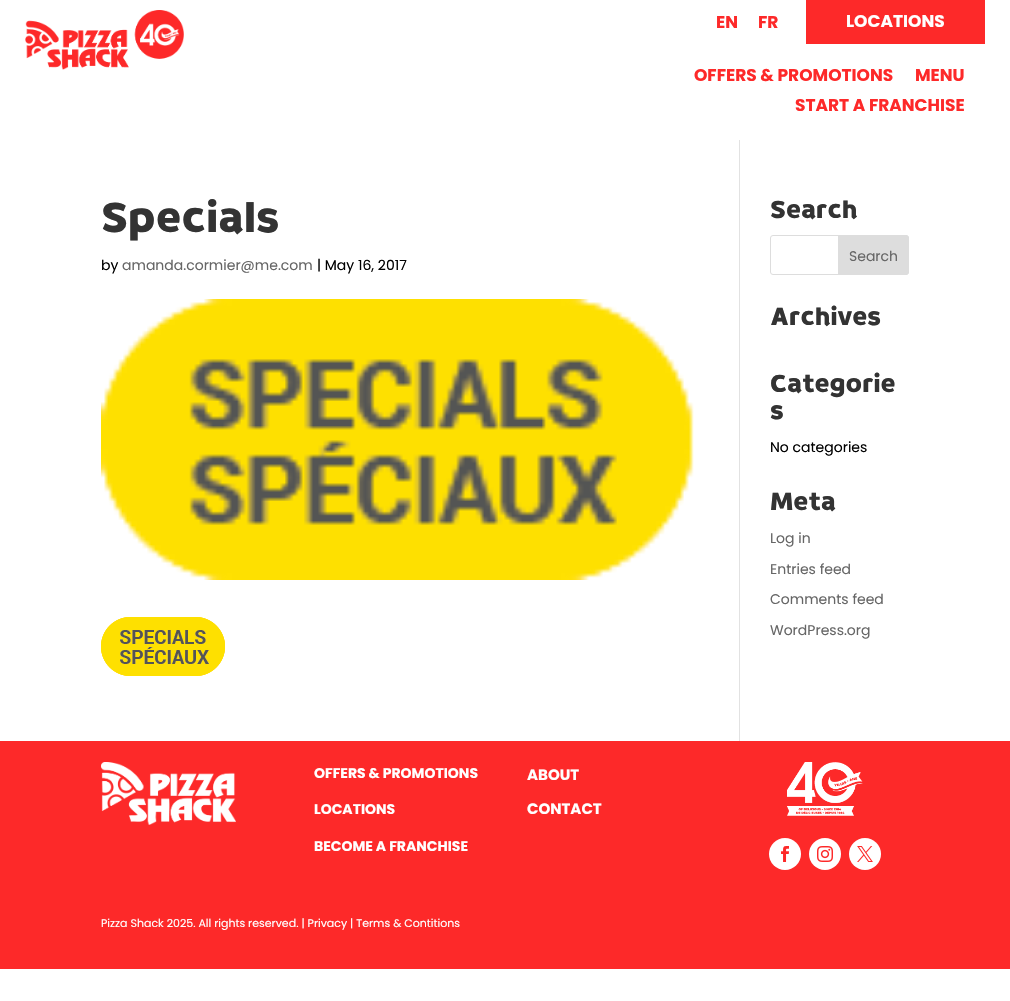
#include "include/core/SkBlurTypes.h"
#include "include/core/SkCanvas.h"
#include "include/core/SkData.h"
#include "include/core/SkFont.h"
#include "include/core/SkFontMgr.h"
#include "include/core/SkImage.h"
#include "include/core/SkMaskFilter.h"
#include "include/core/SkPaint.h"
#include "include/core/SkPathBuilder.h"
#include "include/core/SkTextBlob.h"
#include "include/effects/SkDashPathEffect.h"
#include "include/effects/SkGradientShader.h"
#include "include/utils/SkParsePath.h"

extern sk_sp<SkFontMgr> fontMgr;

void draw(SkCanvas* canvas) {
    SkPaint p;
    p.setAntiAlias(true);
    auto font = [&](const char* family, int weight, float size, bool italic = false) {
        SkFontStyle style(weight, SkFontStyle::kNormal_Width,
            italic ? SkFontStyle::kItalic_Slant : SkFontStyle::kUpright_Slant);
        SkFont result(fontMgr->matchFamilyStyle(family, style), size);
        result.setSubpixel(true);
        return result;
    };
    auto drawPhoto = [&](const char* path, float l, float t, float r, float b) {
        auto image = SkImages::DeferredFromEncodedData(SkData::MakeFromFileName(path));
        canvas->drawImageRect(image, SkRect::MakeLTRB(l, t, r, b), SkSamplingOptions());
    };
    canvas->clear(0xFFFFFFFF);
    drawPhoto("media/1.png", 25, 10, 184, 70);
    auto font1 = font("Poppins", 700, 17);
    p.setColor(0xFFFD2929);
    canvas->drawString("EN", 716, 28, font1, p);
    canvas->drawString("FR", 758, 28, font1, p);
    canvas->drawRect(SkRect::MakeLTRB(806, 0, 985, 44), p);
    p.setColor(0xFFFFFFFF);
    canvas->drawString("LOCATIONS", 846, 27, font1, p);
    p.setColor(0xFFFD2929);
    {
        const struct { const char* s; float x, y; } items[] = {
            {"OFFERS & PROMOTIONS", 694, 81},
            {"MENU", 915, 81},
            {"START A FRANCHISE", 795, 111},
        };
        for (auto [s, x, y] : items) {
            canvas->drawString(s, x, y, font1, p);
        }
    }
    p.setColor(0xFFE2E2E2);
    canvas->drawRect(SkRect::MakeLTRB(739, 140, 740, 741), p);
    auto font2 = font("Braah One", 400, 46);
    p.setColor(0xFF333333);
    canvas->drawString("Specials", 101, 232, font2, p);
    auto font3 = font("Poppins", 400, 14);
    p.setColor(0xFF000000);
    canvas->drawString("by", 101, 270, font3, p);
    p.setColor(0xFF666666);
    canvas->drawString("amanda.cormier@me.com", 122, 270, font3, p);
    p.setColor(0xFF000000);
    canvas->drawString("| May 16, 2017", 317, 270, font3, p);
    drawPhoto("media/2.png", 101, 299, 694, 580);
    drawPhoto("media/3.png", 101, 617, 225, 676);
    auto font4 = font("Braah One", 400, 27);
    p.setColor(0xFF333333);
    canvas->drawString("Search", 770, 218, font4, p);
    p.setStyle(SkPaint::kStroke_Style);
    p.setStrokeWidth(1);
    p.setColor(0xFFDDDDDD);
    canvas->drawRoundRect(SkRect::MakeLTRB(770.5f, 235.5f, 908.5f, 274.5f), 2.5f, 2.5f, p);
    p.setStyle(SkPaint::kFill_Style);
    canvas->drawPath(SkPathBuilder().moveTo(838.5f, 235.5f).lineTo(906, 235.5f).cubicTo(907.5f, 235.5f, 908.5f, 236.5f, 908.5f, 238).lineTo(908.5f, 272).cubicTo(908.5f, 273.5f, 907.5f, 274.5f, 906, 274.5f).lineTo(838.5f, 274.5f).close().detach(), p);
    p.setStyle(SkPaint::kStroke_Style);
    canvas->drawPath(SkPathBuilder().moveTo(838.5f, 235.5f).lineTo(906, 235.5f).cubicTo(907.5f, 235.5f, 908.5f, 236.5f, 908.5f, 238).lineTo(908.5f, 272).cubicTo(908.5f, 273.5f, 907.5f, 274.5f, 906, 274.5f).lineTo(838.5f, 274.5f).close().detach(), p);
    p.setStyle(SkPaint::kFill_Style);
    p.setColor(0xFF666666);
    canvas->drawString("Search", 849, 261, font3, p);
    p.setColor(0xFF333333);
    {
        const struct { const char* s; float x, y; } items[] = {
            {"Archives", 770, 325},
            {"Categorie", 770, 392},
            {"s", 770, 419},
        };
        for (auto [s, x, y] : items) {
            canvas->drawString(s, x, y, font4, p);
        }
    }
    p.setColor(0xFF000000);
    canvas->drawString("No categories", 770, 452, font3, p);
    p.setColor(0xFF333333);
    canvas->drawString("Meta", 770, 510, font4, p);
    p.setColor(0xFF666666);
    {
        const struct { const char* s; float x, y; } items[] = {
            {"Log in", 770, 543},
            {"Entries feed", 770, 574},
            {"Comments feed", 770, 604},
            {"WordPress.org", 770, 635},
        };
        for (auto [s, x, y] : items) {
            canvas->drawString(s, x, y, font3, p);
        }
    }
    p.setColor(0xFFFD2929);
    canvas->drawRect(SkRect::MakeLTRB(0, 741, 1010, 969), p);
    drawPhoto("media/4.png", 101, 762, 236, 825);
    auto font5 = font("Poppins", 700, 14);
    p.setColor(0xFFFFFFFF);
    {
        const struct { const char* s; float x, y; } items[] = {
            {"OFFERS & PROMOTIONS", 314, 778},
            {"LOCATIONS", 314, 814},
            {"BECOME A FRANCHISE", 314, 851},
        };
        for (auto [s, x, y] : items) {
            canvas->drawString(s, x, y, font5, p);
        }
    }
    auto font6 = font("Poppins", 700, 15);
    canvas->drawString("ABOUT", 527, 780, font6, p);
    canvas->drawString("CONTACT", 527, 814, font6, p);
    drawPhoto("media/5.png", 787, 762, 863, 816);
    canvas->drawCircle(785, 854, 16, p);
    drawPhoto("media/6.png", 781, 846, 789, 862);
    canvas->drawCircle(825, 854, 16, p);
    drawPhoto("media/7.png", 817, 846, 833, 862);
    canvas->drawCircle(865, 854, 16, p);
    drawPhoto("media/8.png", 857, 846, 873, 862);
    auto font7 = font("Poppins", 400, 11);
    canvas->drawString("Pizza Shack 2025. All rights reserved. | Privacy | Terms & Contitions", 101, 927, font7, p);
}
